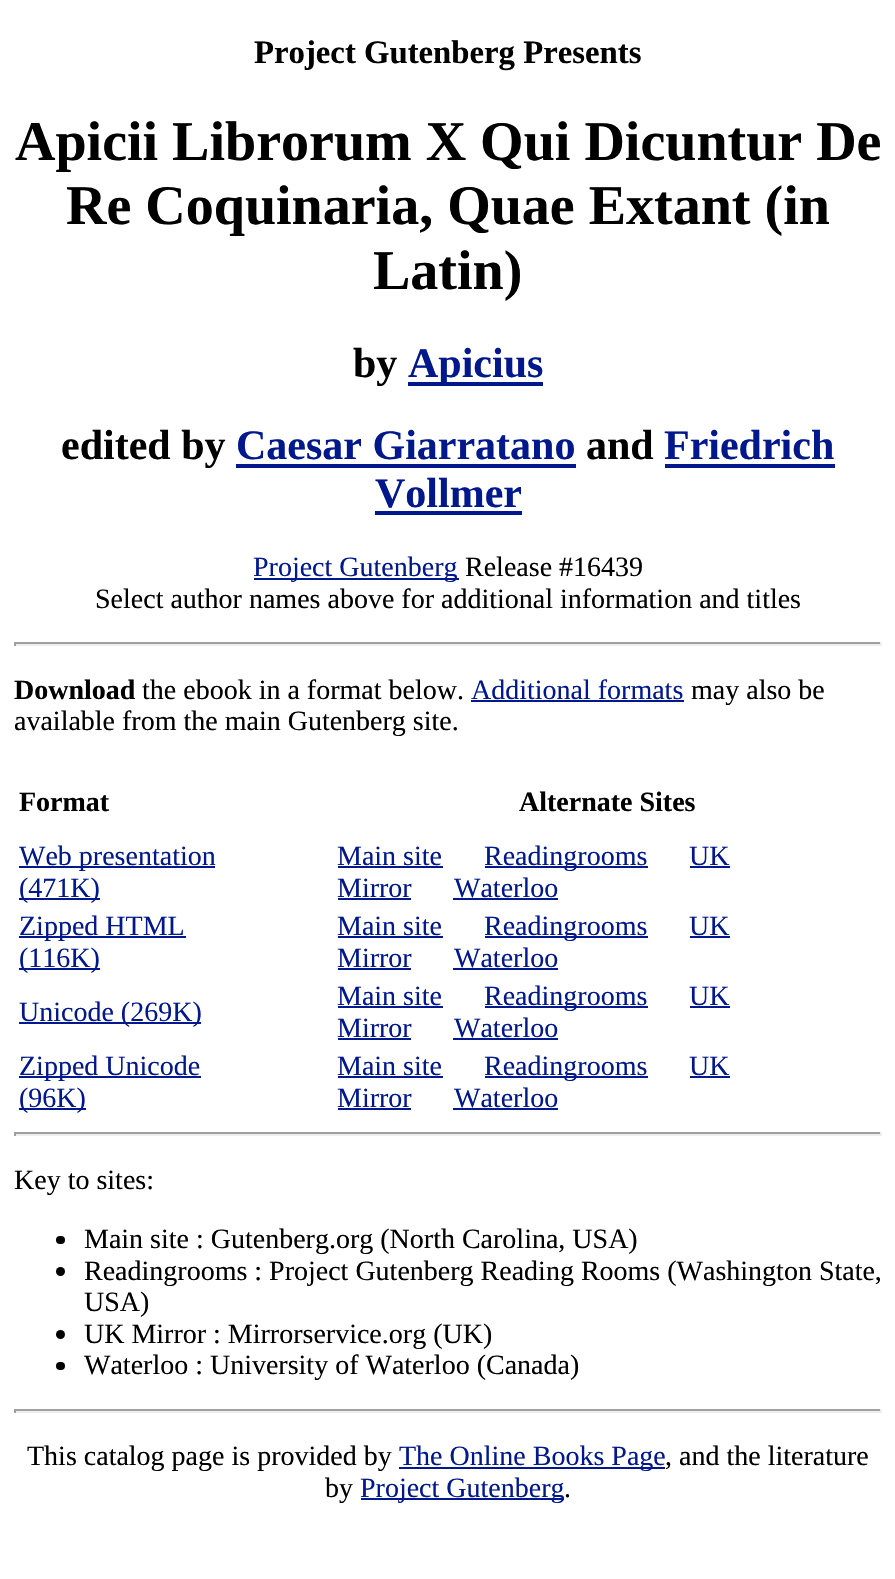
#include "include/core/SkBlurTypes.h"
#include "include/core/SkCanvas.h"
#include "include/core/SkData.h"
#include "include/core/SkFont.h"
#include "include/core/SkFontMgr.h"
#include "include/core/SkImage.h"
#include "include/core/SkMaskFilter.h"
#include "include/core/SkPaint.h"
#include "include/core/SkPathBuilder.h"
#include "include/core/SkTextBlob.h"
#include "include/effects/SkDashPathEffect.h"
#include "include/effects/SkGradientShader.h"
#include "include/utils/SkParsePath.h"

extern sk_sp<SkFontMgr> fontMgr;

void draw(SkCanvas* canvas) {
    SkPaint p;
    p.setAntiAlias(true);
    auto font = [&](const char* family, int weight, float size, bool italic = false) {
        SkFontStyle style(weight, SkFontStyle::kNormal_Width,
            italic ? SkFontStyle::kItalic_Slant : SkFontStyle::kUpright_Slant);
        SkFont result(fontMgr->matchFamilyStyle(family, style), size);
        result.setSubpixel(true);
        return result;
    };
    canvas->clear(0xFFFFFFFF);
    auto font1 = font("Liberation Serif", 700, 32.75f);
    p.setColor(0xFF000000);
    canvas->drawString("Project Gutenberg Presents", 254, 63, font1, p);
    auto font2 = font("Liberation Serif", 700, 56);
    {
        const struct { const char* s; float x, y; } items[] = {
            {"Apicii Librorum X Qui Dicuntur De", 15, 160},
            {"Re Coquinaria, Quae Extant (in", 66, 224},
            {"Latin)", 373, 289},
        };
        for (auto [s, x, y] : items) {
            canvas->drawString(s, x, y, font2, p);
        }
    }
    auto font3 = font("Liberation Serif", 700, 42);
    canvas->drawString("by", 353, 377, font3, p);
    p.setColor(0xFF00188C);
    canvas->drawRect(SkRect::MakeLTRB(408, 382, 543, 386), p);
    canvas->drawString("Apicius", 408, 377, font3, p);
    p.setColor(0xFF000000);
    canvas->drawString("edited by", 61, 459, font3, p);
    p.setColor(0xFF00188C);
    canvas->drawString("Caesar Giarratano", 236, 459, font3, p);
    canvas->drawRect(SkRect::MakeLTRB(236, 464, 576, 468), p);
    p.setColor(0xFF000000);
    canvas->drawString("and", 586, 459, font3, p);
    p.setColor(0xFF00188C);
    canvas->drawString("Friedrich", 664, 459, font3, p);
    canvas->drawRect(SkRect::MakeLTRB(665, 464, 835, 468), p);
    canvas->drawString("Vollmer", 375, 507, font3, p);
    canvas->drawRect(SkRect::MakeLTRB(375, 511, 522, 515), p);
    canvas->drawRect(SkRect::MakeLTRB(254, 578, 459, 580), p);
    auto font4 = font("Liberation Serif", 400, 28);
    canvas->drawString("Project Gutenberg", 253, 576, font4, p);
    p.setColor(0xFF000000);
    canvas->drawString("Release #16439", 465, 576, font4, p);
    canvas->drawString("Select author names above for additional information and titles", 95, 608, font4, p);
    {
        const struct { float l, t, r, b; SkColor color; } items[] = {
            {14, 642, 882, 644, 0xFF9F9F9F},
            {880, 642, 882, 646, 0xFFEEEEEE},
            {14, 644, 882, 646, 0xFFEEEEEE},
            {14, 642, 16, 646, 0xFF9F9F9F},
        };
        for (auto [l, t, r, b, color] : items) {
            p.setColor(color);
            canvas->drawRect(SkRect::MakeLTRB(l, t, r, b), p);
        }
    }
    auto font5 = font("Liberation Serif", 700, 28);
    p.setColor(0xFF000000);
    canvas->drawString("Download", 14, 699, font5, p);
    canvas->drawString("the ebook in a format below.", 142, 699, font4, p);
    p.setColor(0xFF00188C);
    canvas->drawString("Additional formats", 471, 699, font4, p);
    canvas->drawRect(SkRect::MakeLTRB(471, 700, 684, 702), p);
    p.setColor(0xFF000000);
    canvas->drawString("may also be", 691, 699, font4, p);
    canvas->drawString("available from the main Gutenberg site.", 14, 730, font4, p);
    canvas->drawString("Format", 19, 811, font5, p);
    canvas->drawString("Alternate Sites", 519, 811, font5, p);
    p.setColor(0xFF00188C);
    canvas->drawRect(SkRect::MakeLTRB(19, 866, 215, 868), p);
    canvas->drawString("Web presentation", 19, 865, font4, p);
    canvas->drawRect(SkRect::MakeLTRB(19, 898, 100, 900), p);
    canvas->drawString("(471K)", 19, 897, font4, p);
    canvas->drawString("Main site", 337, 865, font4, p);
    canvas->drawRect(SkRect::MakeLTRB(338, 866, 443, 868), p);
    canvas->drawRect(SkRect::MakeLTRB(485, 866, 648, 868), p);
    canvas->drawString("Readingrooms", 484, 865, font4, p);
    canvas->drawString("UK", 689, 865, font4, p);
    canvas->drawRect(SkRect::MakeLTRB(690, 866, 730, 868), p);
    canvas->drawString("Mirror", 337, 897, font4, p);
    canvas->drawRect(SkRect::MakeLTRB(338, 898, 411, 900), p);
    canvas->drawString("Waterloo", 454, 897, font4, p);
    canvas->drawRect(SkRect::MakeLTRB(453, 898, 558, 900), p);
    canvas->drawRect(SkRect::MakeLTRB(19, 936, 186, 938), p);
    canvas->drawString("Zipped HTML", 19, 935, font4, p);
    canvas->drawRect(SkRect::MakeLTRB(19, 968, 100, 970), p);
    canvas->drawString("(116K)", 19, 967, font4, p);
    canvas->drawString("Main site", 337, 935, font4, p);
    canvas->drawRect(SkRect::MakeLTRB(338, 936, 443, 938), p);
    canvas->drawRect(SkRect::MakeLTRB(485, 936, 648, 938), p);
    canvas->drawString("Readingrooms", 484, 935, font4, p);
    canvas->drawString("UK", 689, 935, font4, p);
    canvas->drawRect(SkRect::MakeLTRB(690, 936, 730, 938), p);
    canvas->drawString("Mirror", 337, 967, font4, p);
    canvas->drawRect(SkRect::MakeLTRB(338, 968, 411, 970), p);
    canvas->drawString("Waterloo", 454, 967, font4, p);
    canvas->drawRect(SkRect::MakeLTRB(453, 968, 558, 970), p);
    canvas->drawRect(SkRect::MakeLTRB(19, 1022, 201, 1024), p);
    canvas->drawString("Unicode (269K)", 19, 1021, font4, p);
    canvas->drawString("Main site", 337, 1005, font4, p);
    canvas->drawRect(SkRect::MakeLTRB(338, 1006, 443, 1008), p);
    canvas->drawRect(SkRect::MakeLTRB(485, 1006, 648, 1008), p);
    canvas->drawString("Readingrooms", 484, 1005, font4, p);
    canvas->drawString("UK", 689, 1005, font4, p);
    canvas->drawRect(SkRect::MakeLTRB(690, 1006, 730, 1008), p);
    canvas->drawString("Mirror", 337, 1037, font4, p);
    canvas->drawRect(SkRect::MakeLTRB(338, 1038, 411, 1040), p);
    canvas->drawString("Waterloo", 454, 1037, font4, p);
    canvas->drawRect(SkRect::MakeLTRB(453, 1038, 558, 1040), p);
    canvas->drawRect(SkRect::MakeLTRB(19, 1076, 201, 1078), p);
    canvas->drawString("Zipped Unicode", 19, 1075, font4, p);
    canvas->drawRect(SkRect::MakeLTRB(19, 1108, 86, 1110), p);
    canvas->drawString("(96K)", 19, 1107, font4, p);
    canvas->drawString("Main site", 337, 1075, font4, p);
    canvas->drawRect(SkRect::MakeLTRB(338, 1076, 443, 1078), p);
    canvas->drawRect(SkRect::MakeLTRB(485, 1076, 648, 1078), p);
    canvas->drawString("Readingrooms", 484, 1075, font4, p);
    canvas->drawString("UK", 689, 1075, font4, p);
    canvas->drawRect(SkRect::MakeLTRB(690, 1076, 730, 1078), p);
    canvas->drawString("Mirror", 337, 1107, font4, p);
    canvas->drawRect(SkRect::MakeLTRB(338, 1108, 411, 1110), p);
    canvas->drawString("Waterloo", 454, 1107, font4, p);
    {
        const struct { float l, t, r, b; SkColor color; } items[] = {
            {453, 1108, 558, 1110, 0xFF00188C},
            {14, 1132, 882, 1134, 0xFF9F9F9F},
            {880, 1132, 882, 1136, 0xFFEEEEEE},
            {14, 1134, 882, 1136, 0xFFEEEEEE},
            {14, 1132, 16, 1136, 0xFF9F9F9F},
        };
        for (auto [l, t, r, b, color] : items) {
            p.setColor(color);
            canvas->drawRect(SkRect::MakeLTRB(l, t, r, b), p);
        }
    }
    p.setColor(0xFF000000);
    canvas->drawString("Key to sites:", 14, 1189, font4, p);
    canvas->drawRoundRect(SkRect::MakeLTRB(56, 1236, 65, 1244), 4, 4, p);
    canvas->drawString("Main site : Gutenberg.org (North Carolina, USA)", 84, 1248, font4, p);
    canvas->drawCircle(60.5f, 1271.5f, 4.5f, p);
    canvas->drawString("Readingrooms : Project Gutenberg Reading Rooms (Washington State,", 84, 1280, font4, p);
    canvas->drawString("USA)", 84, 1311, font4, p);
    canvas->drawCircle(60.5f, 1334.5f, 4.5f, p);
    canvas->drawString("UK Mirror : Mirrorservice.org (UK)", 84, 1343, font4, p);
    canvas->drawRoundRect(SkRect::MakeLTRB(56, 1362, 65, 1370), 4, 4, p);
    canvas->drawString("Waterloo : University of Waterloo (Canada)", 84, 1374, font4, p);
    {
        const struct { float l, t, r, b; SkColor color; } items[] = {
            {14, 1409, 882, 1411, 0xFF9F9F9F},
            {880, 1409, 882, 1413, 0xFFEEEEEE},
            {14, 1411, 882, 1413, 0xFFEEEEEE},
            {14, 1409, 16, 1413, 0xFF9F9F9F},
        };
        for (auto [l, t, r, b, color] : items) {
            p.setColor(color);
            canvas->drawRect(SkRect::MakeLTRB(l, t, r, b), p);
        }
    }
    p.setColor(0xFF000000);
    canvas->drawString("This catalog page is provided by", 27, 1465, font4, p);
    p.setColor(0xFF00188C);
    canvas->drawRect(SkRect::MakeLTRB(399, 1467, 665, 1469), p);
    canvas->drawString("The Online Books Page", 399, 1465, font4, p);
    p.setColor(0xFF000000);
    canvas->drawString(", and the literature", 665, 1465, font4, p);
    canvas->drawString("by", 325, 1497, font4, p);
    p.setColor(0xFF00188C);
    canvas->drawRect(SkRect::MakeLTRB(361, 1498, 564, 1500), p);
    canvas->drawString("Project Gutenberg", 360, 1497, font4, p);
    p.setColor(0xFF000000);
    canvas->drawString(".", 564, 1497, font4, p);
}
